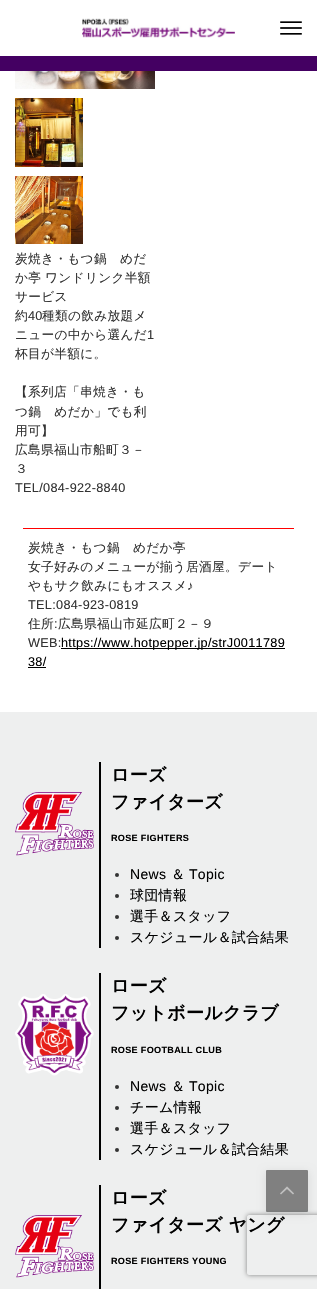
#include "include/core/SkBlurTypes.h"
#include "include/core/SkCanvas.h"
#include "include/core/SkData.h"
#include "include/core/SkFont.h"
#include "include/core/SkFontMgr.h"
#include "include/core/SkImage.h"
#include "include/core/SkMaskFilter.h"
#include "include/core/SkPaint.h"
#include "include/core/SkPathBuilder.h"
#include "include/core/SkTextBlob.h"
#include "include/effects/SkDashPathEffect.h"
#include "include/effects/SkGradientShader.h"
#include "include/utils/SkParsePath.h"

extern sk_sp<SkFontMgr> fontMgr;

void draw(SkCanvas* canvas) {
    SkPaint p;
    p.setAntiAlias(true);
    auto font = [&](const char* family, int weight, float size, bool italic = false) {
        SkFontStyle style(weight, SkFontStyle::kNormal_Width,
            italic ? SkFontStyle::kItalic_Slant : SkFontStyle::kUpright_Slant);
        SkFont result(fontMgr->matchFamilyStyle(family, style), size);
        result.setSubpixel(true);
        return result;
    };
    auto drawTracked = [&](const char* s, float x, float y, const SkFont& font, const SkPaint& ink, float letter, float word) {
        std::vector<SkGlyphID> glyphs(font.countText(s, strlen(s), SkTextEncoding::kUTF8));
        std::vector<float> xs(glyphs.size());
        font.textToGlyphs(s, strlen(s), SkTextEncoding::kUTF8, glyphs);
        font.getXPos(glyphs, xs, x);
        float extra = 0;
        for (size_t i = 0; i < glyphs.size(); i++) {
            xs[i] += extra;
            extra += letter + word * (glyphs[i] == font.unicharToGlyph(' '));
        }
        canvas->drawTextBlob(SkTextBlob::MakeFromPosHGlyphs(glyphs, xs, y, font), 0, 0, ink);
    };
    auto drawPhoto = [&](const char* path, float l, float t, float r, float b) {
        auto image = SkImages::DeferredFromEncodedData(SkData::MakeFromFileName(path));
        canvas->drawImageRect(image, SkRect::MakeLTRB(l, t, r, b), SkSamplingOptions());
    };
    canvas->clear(0xFFFFFFFF);
    p.setColor(0xFF440062);
    canvas->drawRect(SkRect::MakeLTRB(0, 56, 317, 71), p);
    drawPhoto("media/1.png", 82, 18, 235, 38);
    drawPhoto("media/2.png", 280, 21, 302, 35);
    drawPhoto("media/3.png", 15, 71, 155, 89);
    drawPhoto("media/4.png", 15, 98, 83, 167);
    drawPhoto("media/5.png", 15, 176, 83, 244);
    auto font1 = font("WenQuanYi Zen Hei", 500, 12.7f);
    p.setColor(0xFF333333);
    {
        const struct { const char* s; float x, y; } items[] = {
            {"炭焼き・もつ鍋　めだ", 15, 263},
            {"か亭", 15, 282},
            {"ワンドリンク半額", 45, 282},
            {"サービス", 15, 301},
            {"約", 15, 320},
        };
        for (auto [s, x, y] : items) {
            drawTracked(s, x, y, font1, p, 0.3f, 0);
        }
    }
    auto font2 = font("Liberation Sans", 400, 12.7f);
    drawTracked("40", 28, 320, font2, p, 0.3f, 0);
    drawTracked("種類の飲み放題メ", 42, 320, font1, p, 0.3f, 0);
    drawTracked("ニューの中から選んだ", 15, 339, font1, p, 0.3f, 0);
    drawTracked("1", 147, 339, font2, p, 0.3f, 0);
    {
        const struct { const char* s; float x, y; } items[] = {
            {"杯目が半額に。", 15, 358},
            {"【系列店「串焼き・も", 15, 396},
            {"つ鍋　めだか」でも利", 15, 416},
            {"用可】", 15, 435},
            {"広島県福山市船町３－", 15, 454},
            {"３", 15, 473},
        };
        for (auto [s, x, y] : items) {
            drawTracked(s, x, y, font1, p, 0.3f, 0);
        }
    }
    drawTracked("TEL/084-922-8840", 15, 492, font2, p, 0.3f, 0);
    p.setColor(0xFFFF0000);
    canvas->drawRect(SkRect::MakeLTRB(23, 528, 294, 529), p);
    p.setColor(0xFF333333);
    {
        const struct { const char* s; float x, y; } items[] = {
            {"炭焼き・もつ鍋　めだか亭", 28, 552},
            {"女子好みのメニューが揃う居酒屋。デート", 28, 571},
            {"やもサク飲みにもオススメ", 28, 590},
        };
        for (auto [s, x, y] : items) {
            drawTracked(s, x, y, font1, p, 0.3f, 0);
        }
    }
    drawTracked("♪", 187, 590, font2, p, 0.3f, 0);
    drawTracked("TEL:084-923-0819", 28, 609, font2, p, 0.3f, 0);
    drawTracked("住所 広島県福山市延広町２－９", 28, 628, font1, p, 0.3f, 0);
    drawTracked(":", 54, 628, font2, p, 0.3f, 0);
    drawTracked("WEB:", 28, 647, font2, p, 0.3f, 0);
    p.setColor(0xFF000000);
    canvas->drawRect(SkRect::MakeLTRB(61, 648, 285, 649), p);
    drawTracked("https://www.hotpepper.jp/strJ0011789", 61, 647, font2, p, 0.3f, 0);
    drawTracked("38/", 28, 666, font2, p, 0.3f, 0);
    canvas->drawRect(SkRect::MakeLTRB(28, 667, 46, 668), p);
    p.setColor(0xFFEEEFEF);
    canvas->drawRect(SkRect::MakeLTRB(0, 712, 317, 1289), p);
    drawPhoto("media/6.png", 15, 792, 94, 856);
    p.setColor(0xFF000000);
    canvas->drawRect(SkRect::MakeLTRB(99, 762, 101, 948), p);
    auto font3 = font("WenQuanYi Zen Hei", 700, 18);
    drawTracked("ローズ", 111, 781, font3, p, 0.3f, 0);
    drawTracked("ファイターズ", 111, 808, font3, p, 0.3f, 0);
    auto font4 = font("Liberation Sans", 700, 9.1f);
    drawTracked("ROSE FIGHTERS", 111, 841, font4, p, 0.3f, 0);
    p.setColor(0xFF333333);
    canvas->drawCircle(117, 875, 2, p);
    auto font5 = font("Liberation Sans", 400, 14);
    p.setColor(0xFF000000);
    drawTracked("News", 130, 879, font5, p, 0.3f, 0);
    auto font6 = font("WenQuanYi Zen Hei", 500, 14);
    drawTracked("＆", 171, 879, font6, p, 0.3f, 0);
    drawTracked("Topic", 189, 879, font5, p, 0.3f, 0);
    p.setColor(0xFF333333);
    canvas->drawCircle(117, 896, 2, p);
    p.setColor(0xFF000000);
    drawTracked("球団情報", 130, 900, font6, p, 0.3f, 0);
    p.setColor(0xFF333333);
    canvas->drawCircle(117, 917, 2, p);
    p.setColor(0xFF000000);
    drawTracked("選手＆スタッフ", 130, 921, font6, p, 0.3f, 0);
    p.setColor(0xFF333333);
    canvas->drawCircle(117, 938, 2, p);
    p.setColor(0xFF000000);
    drawTracked("スケジュール＆試合結果", 130, 942, font6, p, 0.3f, 0);
    drawPhoto("media/7.png", 15, 994, 94, 1076);
    canvas->drawRect(SkRect::MakeLTRB(99, 973, 101, 1160), p);
    drawTracked("ローズ", 111, 992, font3, p, 0.3f, 0);
    drawTracked("フットボールクラブ", 111, 1019, font3, p, 0.3f, 0);
    drawTracked("ROSE FOOTBALL CLUB", 111, 1053, font4, p, 0.3f, 0);
    p.setColor(0xFF333333);
    canvas->drawCircle(117, 1087, 2, p);
    p.setColor(0xFF000000);
    drawTracked("News", 130, 1091, font5, p, 0.3f, 0);
    drawTracked("＆", 171, 1091, font6, p, 0.3f, 0);
    drawTracked("Topic", 189, 1091, font5, p, 0.3f, 0);
    p.setColor(0xFF333333);
    canvas->drawCircle(117, 1108, 2, p);
    p.setColor(0xFF000000);
    drawTracked("チーム情報", 130, 1112, font6, p, 0.3f, 0);
    p.setColor(0xFF333333);
    canvas->drawCircle(117, 1129, 2, p);
    p.setColor(0xFF000000);
    drawTracked("選手＆スタッフ", 130, 1133, font6, p, 0.3f, 0);
    p.setColor(0xFF333333);
    canvas->drawCircle(117, 1150, 2, p);
    p.setColor(0xFF000000);
    drawTracked("スケジュール＆試合結果", 130, 1154, font6, p, 0.3f, 0);
    drawPhoto("media/8.png", 15, 1215, 94, 1278);
    canvas->drawRect(SkRect::MakeLTRB(99, 1185, 101, 1289), p);
    drawTracked("ローズ", 111, 1204, font3, p, 0.3f, 0);
    drawTracked("ファイターズ ヤング", 111, 1231, font3, p, 0.3f, 0);
    drawTracked("ROSE FIGHTERS YOUNG", 111, 1264, font4, p, 0.3f, 0);
    canvas->save();
    canvas->clipPath(SkPathBuilder(SkPathFillType::kEvenOdd).moveTo(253, 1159).lineTo(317, 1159).lineTo(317, 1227).lineTo(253, 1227).close().moveTo(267, 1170).lineTo(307, 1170).cubicTo(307.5f, 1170, 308, 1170.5f, 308, 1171).lineTo(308, 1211).cubicTo(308, 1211.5f, 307.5f, 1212, 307, 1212).lineTo(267, 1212).cubicTo(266.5f, 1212, 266, 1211.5f, 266, 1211).lineTo(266, 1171).cubicTo(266, 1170.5f, 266.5f, 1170, 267, 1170).close().detach(), true);
    p.setColor(0x1A000000);
    p.setMaskFilter(SkMaskFilter::MakeBlur(kNormal_SkBlurStyle, 4));
    canvas->drawRoundRect(SkRect::MakeLTRB(266, 1172, 308, 1214), 1, 1, p);
    p.setMaskFilter(nullptr);
    canvas->restore();
    canvas->save();
    canvas->clipPath(SkPathBuilder(SkPathFillType::kEvenOdd).moveTo(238, 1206).lineTo(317, 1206).lineTo(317, 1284).lineTo(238, 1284).close().moveTo(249, 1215).lineTo(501, 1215).cubicTo(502, 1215, 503, 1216, 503, 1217).lineTo(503, 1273).cubicTo(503, 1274, 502, 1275, 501, 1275).lineTo(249, 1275).cubicTo(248, 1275, 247, 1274, 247, 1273).lineTo(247, 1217).cubicTo(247, 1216, 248, 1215, 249, 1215).close().detach(), true);
    p.setColor(0xFF808080);
    p.setMaskFilter(SkMaskFilter::MakeBlur(kNormal_SkBlurStyle, 2.5f));
    canvas->drawRoundRect(SkRect::MakeLTRB(247, 1215, 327, 1275), 2, 2, p);
    p.setMaskFilter(nullptr);
    canvas->restore();
    p.setColor(0x80111111);
    canvas->drawRoundRect(SkRect::MakeLTRB(266, 1170, 308, 1212), 1, 1, p);
    drawPhoto("media/9.png", 280, 1186, 294, 1195);
}
